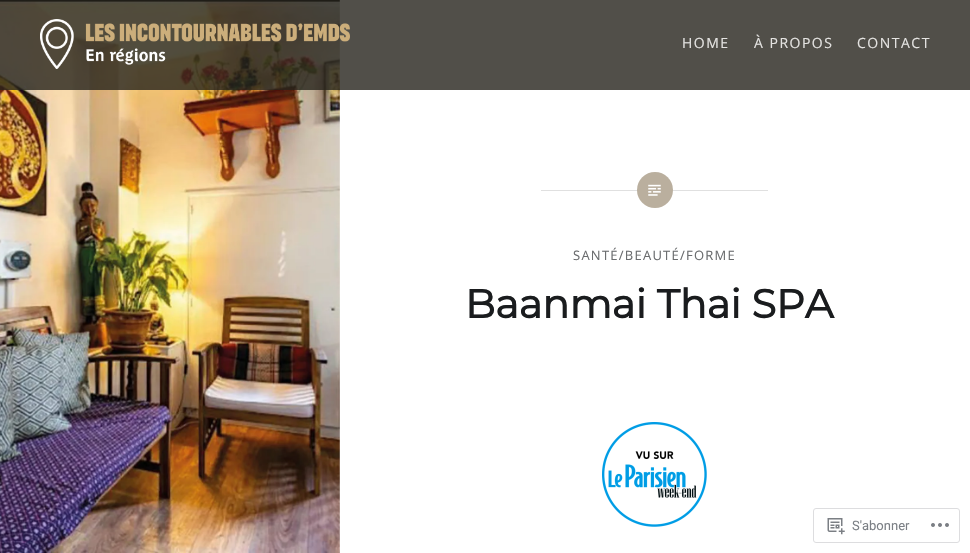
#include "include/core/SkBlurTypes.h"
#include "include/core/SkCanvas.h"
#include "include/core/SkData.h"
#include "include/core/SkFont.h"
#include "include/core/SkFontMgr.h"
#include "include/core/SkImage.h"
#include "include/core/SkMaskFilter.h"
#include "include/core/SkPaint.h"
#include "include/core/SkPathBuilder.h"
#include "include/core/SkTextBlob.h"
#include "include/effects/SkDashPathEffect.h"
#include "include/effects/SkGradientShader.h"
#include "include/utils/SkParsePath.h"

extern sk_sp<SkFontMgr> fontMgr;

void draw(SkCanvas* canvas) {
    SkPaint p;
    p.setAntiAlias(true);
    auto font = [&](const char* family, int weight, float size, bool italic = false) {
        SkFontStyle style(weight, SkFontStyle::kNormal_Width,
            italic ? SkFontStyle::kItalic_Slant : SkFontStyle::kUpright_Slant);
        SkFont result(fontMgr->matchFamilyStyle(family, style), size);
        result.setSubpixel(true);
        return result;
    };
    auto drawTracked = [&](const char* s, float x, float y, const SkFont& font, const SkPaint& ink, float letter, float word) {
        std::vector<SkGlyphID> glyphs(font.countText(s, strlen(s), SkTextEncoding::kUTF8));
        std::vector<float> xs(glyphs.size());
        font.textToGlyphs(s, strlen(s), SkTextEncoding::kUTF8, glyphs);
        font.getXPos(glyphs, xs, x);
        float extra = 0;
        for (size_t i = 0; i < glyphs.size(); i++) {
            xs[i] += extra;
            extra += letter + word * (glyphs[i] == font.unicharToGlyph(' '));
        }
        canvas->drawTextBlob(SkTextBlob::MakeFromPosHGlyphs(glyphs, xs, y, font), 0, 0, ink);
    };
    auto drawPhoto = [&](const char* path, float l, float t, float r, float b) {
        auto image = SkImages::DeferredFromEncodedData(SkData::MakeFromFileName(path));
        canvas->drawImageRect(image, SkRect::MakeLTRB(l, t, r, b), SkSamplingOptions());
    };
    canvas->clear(0xFFFFFFFF);
    drawPhoto("media/2.png", 0, 0, 340, 553);
    p.setColor(0xCC26231C);
    canvas->drawRect(SkRect::MakeLTRB(0, 0, 970, 90), p);
    drawPhoto("media/1.png", 40, 19, 350, 69);
    auto font1 = font("Open Sans", 400, 14);
    p.setColor(0xFFE4E3E1);
    {
        const struct { const char* s; float x, y; } items[] = {
            {"HOME", 682, 48},
            {"À PROPOS", 754, 48},
            {"CONTACT", 857, 48},
        };
        for (auto [s, x, y] : items) {
            drawTracked(s, x, y, font1, p, 1.5f, 0);
        }
    }
    p.setColor(0xFFE0E0E0);
    canvas->drawRect(SkRect::MakeLTRB(541, 190, 768, 191), p);
    p.setColor(0xFFBAAF9E);
    canvas->drawCircle(655, 190, 18, p);
    drawPhoto("media/3.png", 648, 184, 661, 196);
    drawPhoto("media/4.png", 602, 422, 707, 527);
    auto font2 = font("Open Sans", 400, 13);
    p.setColor(0xFF6A6C6E);
    drawTracked("SANTÉ/BEAUTÉ/FORME", 573, 260, font2, p, 1.25f, 0);
    auto font3 = font("Montserrat", 700, 40);
    p.setColor(0xFF1A1C1E);
    canvas->drawString("Baanmai Thai SPA", 465, 318, font3, p);
    p.setStyle(SkPaint::kStroke_Style);
    p.setStrokeWidth(1);
    p.setColor(0xFFDDDDDF);
    canvas->drawRoundRect(SkRect::MakeLTRB(813.5f, 508.5f, 959.5f, 542.5f), 2.5f, 2.5f, p);
    drawPhoto("media/5.png", 827, 518, 845, 535);
    auto font4 = font("Roboto", 400, 13);
    p.setStyle(SkPaint::kFill_Style);
    p.setColor(0xFF7B7F85);
    canvas->drawString("S'abonner", 852, 530, font4, p);
    drawPhoto("media/6.png", 931, 523, 949, 527);
}
